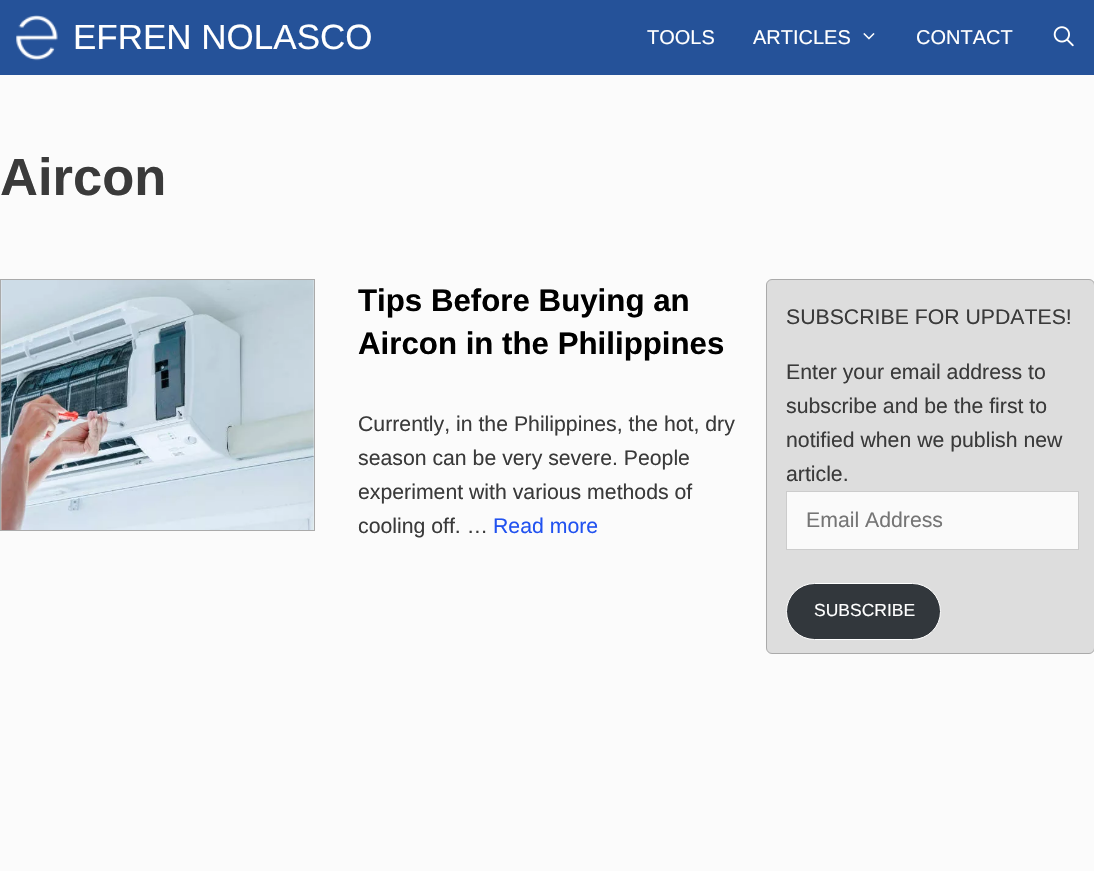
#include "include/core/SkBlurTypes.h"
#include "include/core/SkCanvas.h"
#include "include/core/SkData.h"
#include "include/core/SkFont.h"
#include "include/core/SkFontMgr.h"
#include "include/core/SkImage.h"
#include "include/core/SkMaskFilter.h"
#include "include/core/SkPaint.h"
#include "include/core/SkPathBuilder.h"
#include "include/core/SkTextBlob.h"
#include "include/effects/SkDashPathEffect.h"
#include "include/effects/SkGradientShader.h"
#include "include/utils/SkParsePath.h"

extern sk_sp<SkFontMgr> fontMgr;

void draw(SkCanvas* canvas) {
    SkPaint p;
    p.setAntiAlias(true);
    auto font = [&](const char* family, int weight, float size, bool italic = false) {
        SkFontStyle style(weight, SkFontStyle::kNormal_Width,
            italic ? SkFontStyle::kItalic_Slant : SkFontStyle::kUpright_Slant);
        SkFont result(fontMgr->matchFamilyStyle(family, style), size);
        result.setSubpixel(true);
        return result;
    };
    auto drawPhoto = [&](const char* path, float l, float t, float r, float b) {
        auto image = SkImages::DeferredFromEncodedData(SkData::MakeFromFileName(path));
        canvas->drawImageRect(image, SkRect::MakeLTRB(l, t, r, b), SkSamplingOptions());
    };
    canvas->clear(0xFFFBFBFB);
    p.setColor(0xFF255299);
    canvas->drawRect(SkRect::MakeLTRB(0, 0, 1094, 75), p);
    drawPhoto("media/1.png", 16, 15, 58, 61);
    auto font1 = font("Liberation Sans", 400, 35);
    p.setColor(0xFFFFFFFF);
    canvas->drawString("EFREN NOLASCO", 73, 49, font1, p);
    auto font2 = font("Liberation Sans", 400, 20);
    canvas->drawString("TOOLS", 647, 44, font2, p);
    canvas->drawString("ARTICLES", 753, 44, font2, p);
    drawPhoto("media/2.png", 863, 33, 875, 40);
    canvas->drawString("CONTACT", 916, 44, font2, p);
    drawPhoto("media/3.png", 1053, 26, 1074, 47);
    auto font3 = font("Liberation Sans", 700, 52.5f);
    p.setColor(0xFF3A3A3A);
    canvas->drawString("Aircon", 0, 195, font3, p);
    p.setStyle(SkPaint::kStroke_Style);
    p.setStrokeWidth(1);
    p.setColor(0xFFAAAAAA);
    canvas->drawRect(SkRect::MakeLTRB(0.5f, 279.5f, 314.5f, 530.5f), p);
    drawPhoto("media/4.png", 1, 280, 314, 530);
    auto font4 = font("Liberation Sans", 700, 31.25f);
    p.setStyle(SkPaint::kFill_Style);
    p.setColor(0xFF000000);
    canvas->drawString("Tips Before Buying an", 358, 311, font4, p);
    canvas->drawString("Aircon in the Philippines", 358, 354, font4, p);
    auto font5 = font("Liberation Sans", 400, 21.25f);
    p.setColor(0xFF3A3A3A);
    {
        const struct { const char* s; float x, y; } items[] = {
            {"Currently, in the Philippines, the hot, dry", 358, 431},
            {"season can be very severe. People", 358, 465},
            {"experiment with various methods of", 358, 499},
            {"cooling off. …", 358, 533},
        };
        for (auto [s, x, y] : items) {
            canvas->drawString(s, x, y, font5, p);
        }
    }
    p.setColor(0xFF2152F0);
    canvas->drawString("Read more", 493, 533, font5, p);
    p.setColor(0xFFDDDDDD);
    canvas->drawRoundRect(SkRect::MakeLTRB(766.5f, 279.5f, 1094.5f, 653.5f), 5.5f, 5.5f, p);
    p.setStyle(SkPaint::kStroke_Style);
    p.setColor(0xFFAAAAAA);
    canvas->drawRoundRect(SkRect::MakeLTRB(766.5f, 279.5f, 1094.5f, 653.5f), 5.5f, 5.5f, p);
    p.setStyle(SkPaint::kFill_Style);
    p.setColor(0xFF3A3A3A);
    {
        const struct { const char* s; float x, y; } items[] = {
            {"SUBSCRIBE FOR UPDATES!", 786, 324},
            {"Enter your email address to", 786, 379},
            {"subscribe and be the first to", 786, 413},
            {"notified when we publish new", 786, 447},
            {"article.", 786, 481},
        };
        for (auto [s, x, y] : items) {
            canvas->drawString(s, x, y, font5, p);
        }
    }
    p.setColor(0xFFFAFAFA);
    canvas->drawRect(SkRect::MakeLTRB(786.5f, 491.5f, 1078.5f, 549.5f), p);
    p.setStyle(SkPaint::kStroke_Style);
    p.setColor(0xFFCCCCCC);
    canvas->drawRect(SkRect::MakeLTRB(786.5f, 491.5f, 1078.5f, 549.5f), p);
    p.setStyle(SkPaint::kFill_Style);
    p.setColor(0xFF757575);
    canvas->drawString("Email Address", 806, 527, font5, p);
    p.setColor(0xFF32373C);
    canvas->drawRoundRect(SkRect::MakeLTRB(786.5f, 583.5f, 940.5f, 639.5f), 28, 28, p);
    p.setStyle(SkPaint::kStroke_Style);
    p.setColor(0xFFFFFFFF);
    canvas->drawRoundRect(SkRect::MakeLTRB(786.5f, 583.5f, 940.5f, 639.5f), 28, 28, p);
    auto font6 = font("Liberation Sans", 400, 17.5f);
    p.setStyle(SkPaint::kFill_Style);
    canvas->drawString("SUBSCRIBE", 814, 616, font6, p);
}
